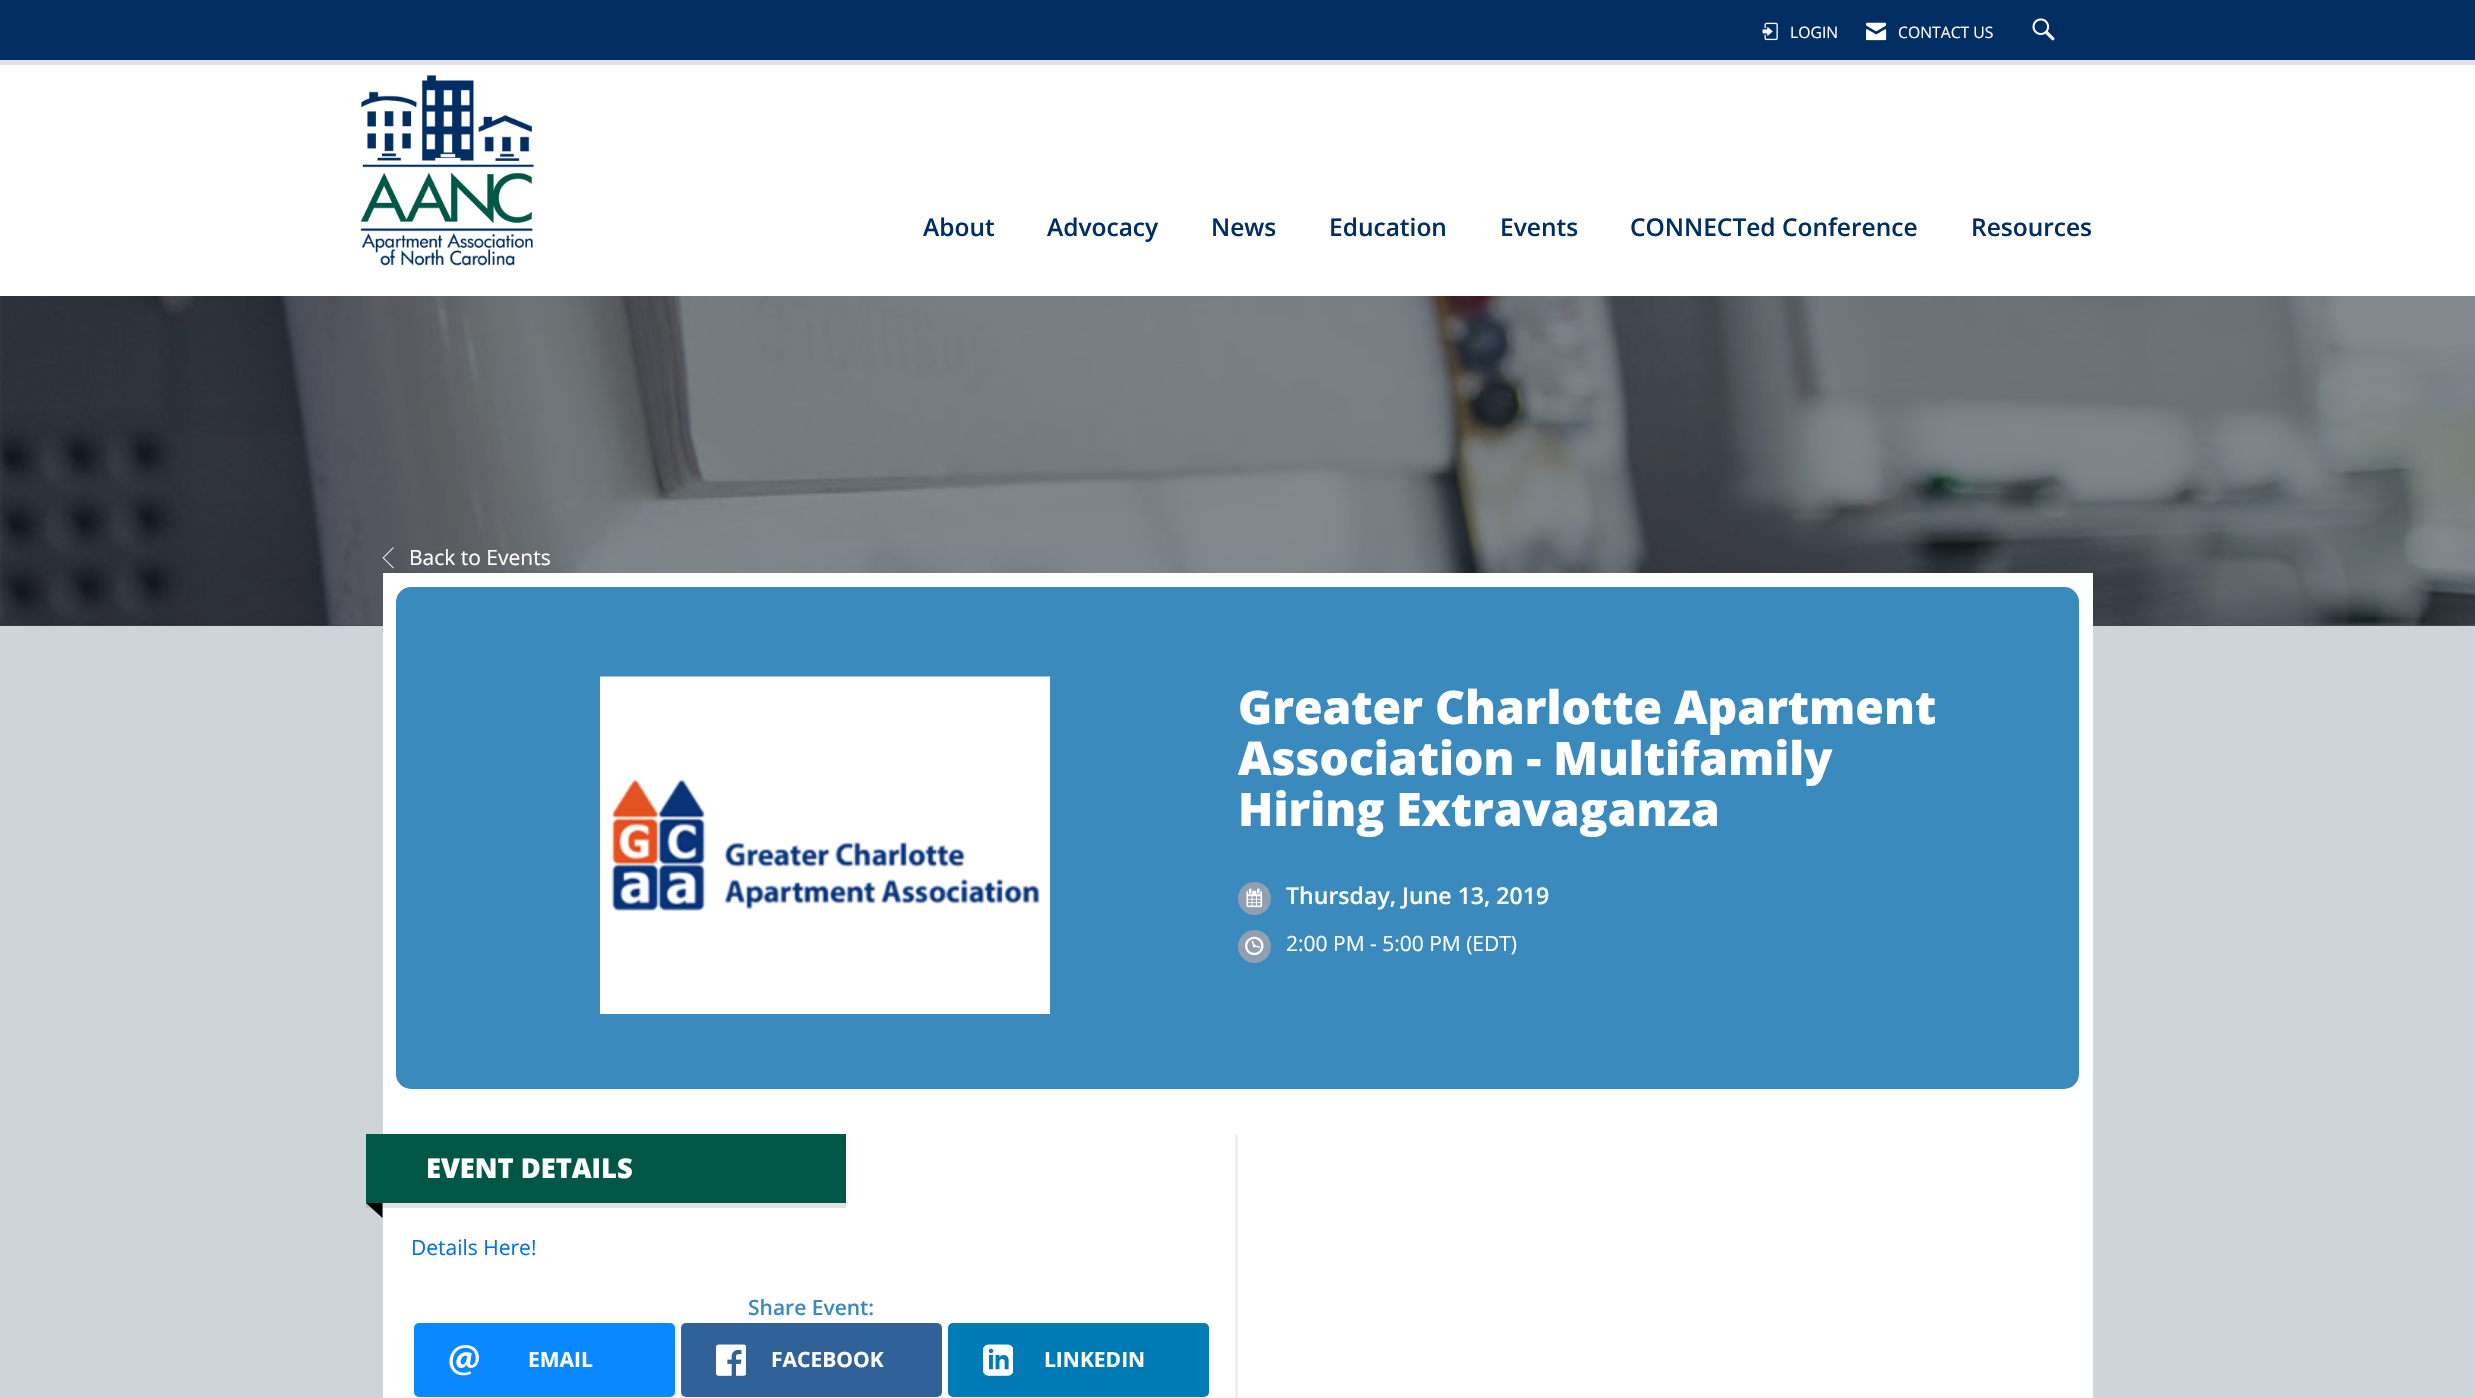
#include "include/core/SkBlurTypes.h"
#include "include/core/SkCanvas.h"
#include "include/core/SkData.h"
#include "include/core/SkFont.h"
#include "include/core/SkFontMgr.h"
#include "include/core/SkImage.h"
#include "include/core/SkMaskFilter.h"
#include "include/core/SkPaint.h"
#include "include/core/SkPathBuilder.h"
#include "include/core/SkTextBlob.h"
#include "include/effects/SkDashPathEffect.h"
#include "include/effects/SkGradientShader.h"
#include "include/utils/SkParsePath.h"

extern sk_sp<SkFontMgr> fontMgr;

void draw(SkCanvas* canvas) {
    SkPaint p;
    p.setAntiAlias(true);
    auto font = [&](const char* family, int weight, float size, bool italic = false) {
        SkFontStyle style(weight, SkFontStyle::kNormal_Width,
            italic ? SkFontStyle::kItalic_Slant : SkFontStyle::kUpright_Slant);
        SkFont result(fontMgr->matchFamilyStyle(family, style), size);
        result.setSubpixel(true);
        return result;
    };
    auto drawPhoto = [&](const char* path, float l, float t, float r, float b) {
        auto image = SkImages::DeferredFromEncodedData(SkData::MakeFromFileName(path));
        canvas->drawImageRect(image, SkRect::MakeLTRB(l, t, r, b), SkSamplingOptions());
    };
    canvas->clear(0xFFCED4D8);
    {
        const struct { float l, t, r, b; SkColor color; } items[] = {
            {0, 65, 2475, 296, 0xFFFFFFFF},
            {0, 60, 2475, 65, 0xFFE3E3E3},
            {0, 0, 2475, 60, 0xFF002D62},
        };
        for (auto [l, t, r, b, color] : items) {
            p.setColor(color);
            canvas->drawRect(SkRect::MakeLTRB(l, t, r, b), p);
        }
    }
    drawPhoto("media/1.png", 1762, 22, 1778, 41);
    auto font1 = font("Open Sans", 400, 15.75f);
    p.setColor(0xFFFFFFFF);
    canvas->drawString("LOGIN", 1790, 38, font1, p);
    drawPhoto("media/2.png", 1866, 22, 1887, 41);
    canvas->drawString("CONTACT US", 1898, 38, font1, p);
    drawPhoto("media/3.png", 2032, 18, 2055, 41);
    drawPhoto("media/4.png", 360, 75, 534, 266);
    auto font2 = font("Open Sans", 600, 24.5f);
    p.setColor(0xFF002D62);
    {
        const struct { const char* s; float x, y; } items[] = {
            {"About", 923, 236},
            {"Advocacy", 1047, 236},
            {"News", 1211, 236},
            {"Education", 1329, 236},
            {"Events", 1500, 236},
            {"CONNECTed Conference", 1630, 236},
            {"Resources", 1971, 236},
        };
        for (auto [s, x, y] : items) {
            canvas->drawString(s, x, y, font2, p);
        }
    }
    p.setColor(0xFFB7BDC0);
    canvas->drawRect(SkRect::MakeLTRB(366, 1203, 383, 1208), p);
    p.setColor(0xFF3F464B);
    canvas->drawRect(SkRect::MakeLTRB(0, 625, 2475, 626), p);
    drawPhoto("media/5.png", 0, 296, 2475, 626);
    drawPhoto("media/6.png", 382, 547, 394, 569);
    auto font3 = font("Open Sans", 400, 21);
    p.setColor(0xFFFFFFFF);
    canvas->drawString("Back to Events", 409, 565, font3, p);
    canvas->drawRect(SkRect::MakeLTRB(383, 573, 2093, 1398), p);
    p.setColor(0xFFE3E3E3);
    canvas->drawRect(SkRect::MakeLTRB(383, 1203, 846, 1208), p);
    p.setColor(0xFF3B8ABD);
    canvas->drawRoundRect(SkRect::MakeLTRB(396, 587, 2079, 1089), 15, 15, p);
    drawPhoto("media/7.png", 600, 676, 1050, 1014);
    auto font4 = font("Open Sans", 800, 46.25f);
    p.setColor(0xFFFFFFFF);
    {
        const struct { const char* s; float x, y; } items[] = {
            {"Greater Charlotte Apartment", 1238, 724},
            {"Association - Multifamily", 1238, 775},
            {"Hiring Extravaganza", 1238, 826},
        };
        for (auto [s, x, y] : items) {
            canvas->drawString(s, x, y, font4, p);
        }
    }
    p.setColor(0xFF90A0B2);
    canvas->drawCircle(1254.5f, 898.5f, 16.5f, p);
    drawPhoto("media/8.png", 1246, 888, 1263, 908);
    auto font5 = font("Open Sans", 600, 23.1f);
    p.setColor(0xFFFFFFFF);
    canvas->drawString("Thursday, June 13, 2019", 1286, 904, font5, p);
    p.setColor(0xFF90A0B2);
    canvas->drawCircle(1254.5f, 946.5f, 16.5f, p);
    drawPhoto("media/9.png", 1245, 936, 1264, 956);
    p.setColor(0xFFFFFFFF);
    canvas->drawString("2:00 PM - 5:00 PM (EDT)", 1286, 951, font3, p);
    p.setColor(0xFFEEEEEE);
    canvas->drawRect(SkRect::MakeLTRB(1235, 1134, 1238, 1398), p);
    p.setColor(0xFF005747);
    canvas->drawRect(SkRect::MakeLTRB(366, 1134, 846, 1203), p);
    auto font6 = font("Open Sans", 800, 27.25f);
    p.setColor(0xFFFFFFFF);
    canvas->drawString("EVENT DETAILS", 426, 1178, font6, p);
    p.setColor(0xFF000000);
    canvas->drawPath(SkPathBuilder().moveTo(366, 1203).lineTo(382.5f, 1203).lineTo(382.5f, 1218).close().detach(), p);
    p.setColor(0xFF0070F0);
    canvas->drawString("Details Here!", 411, 1255, font3, p);
    auto font7 = font("Open Sans", 600, 21);
    p.setColor(0xFF3B8ABD);
    canvas->drawString("Share Event:", 748, 1315, font7, p);
    p.setColor(0xFF0A88FF);
    canvas->drawRoundRect(SkRect::MakeLTRB(414, 1323, 675, 1397), 5, 5, p);
    drawPhoto("media/10.png", 449, 1345, 479, 1376);
    auto font8 = font("Open Sans", 700, 21);
    p.setColor(0xFFFFFFFF);
    canvas->drawString("EMAIL", 528, 1367, font8, p);
    p.setColor(0xFF306199);
    canvas->drawRoundRect(SkRect::MakeLTRB(681, 1323, 942, 1397), 5, 5, p);
    drawPhoto("media/11.png", 716, 1344, 746, 1376);
    p.setColor(0xFFFFFFFF);
    canvas->drawString("FACEBOOK", 771, 1367, font8, p);
    p.setColor(0xFF007BB6);
    canvas->drawRoundRect(SkRect::MakeLTRB(948, 1323, 1209, 1397), 5, 5, p);
    drawPhoto("media/12.png", 983, 1344, 1013, 1376);
    p.setColor(0xFFFFFFFF);
    canvas->drawString("LINKEDIN", 1044, 1367, font8, p);
}
